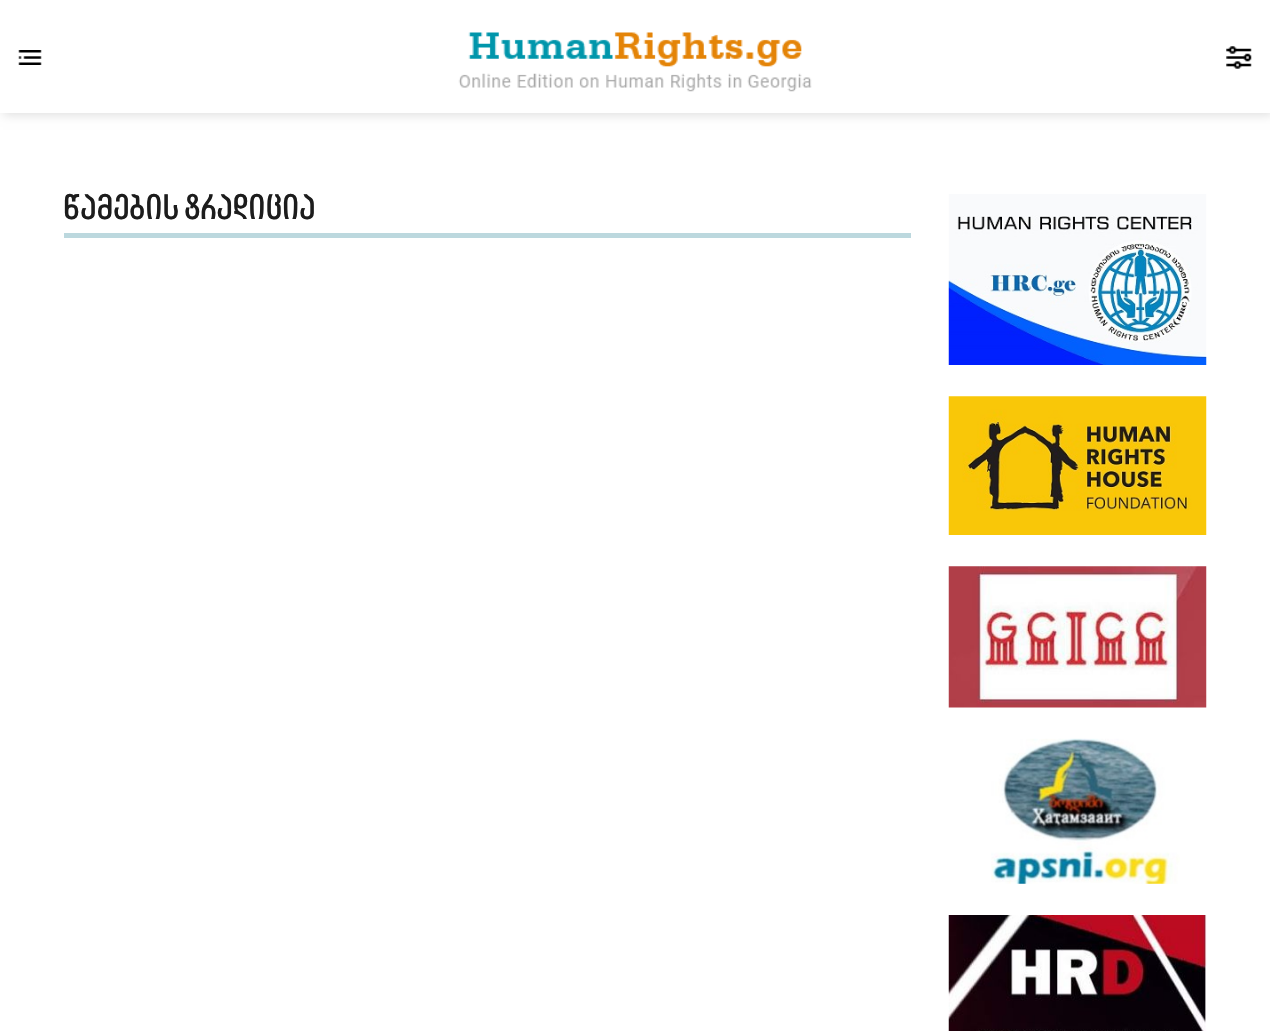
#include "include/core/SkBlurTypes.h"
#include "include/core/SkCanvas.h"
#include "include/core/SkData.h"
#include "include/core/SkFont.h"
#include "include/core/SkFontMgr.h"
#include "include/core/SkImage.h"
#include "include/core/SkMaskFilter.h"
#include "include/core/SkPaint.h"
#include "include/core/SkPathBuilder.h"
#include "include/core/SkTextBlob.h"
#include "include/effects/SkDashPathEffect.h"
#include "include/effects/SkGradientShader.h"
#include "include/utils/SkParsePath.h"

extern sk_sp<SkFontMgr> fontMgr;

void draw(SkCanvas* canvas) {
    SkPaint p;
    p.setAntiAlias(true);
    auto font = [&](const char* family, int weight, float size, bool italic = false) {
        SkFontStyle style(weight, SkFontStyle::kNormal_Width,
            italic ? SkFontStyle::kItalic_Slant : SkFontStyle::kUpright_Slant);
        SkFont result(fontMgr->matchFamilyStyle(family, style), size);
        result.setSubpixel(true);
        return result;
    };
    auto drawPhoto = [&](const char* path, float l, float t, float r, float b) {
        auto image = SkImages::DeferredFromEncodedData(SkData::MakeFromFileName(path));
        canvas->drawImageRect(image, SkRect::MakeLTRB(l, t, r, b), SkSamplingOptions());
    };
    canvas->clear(0xFFFFFFFF);
    p.setColor(0xFFDFDFDF);
    p.setMaskFilter(SkMaskFilter::MakeBlur(kNormal_SkBlurStyle, 5));
    canvas->drawRect(SkRect::MakeLTRB(3, 3, 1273, 115), p);
    p.setMaskFilter(nullptr);
    p.setColor(0xFFFFFFFF);
    canvas->drawRect(SkRect::MakeLTRB(0, 0, 1270, 113), p);
    drawPhoto("media/1.png", 18, 50, 42, 65);
    drawPhoto("media/2.png", 458, 32, 812, 92);
    drawPhoto("media/3.png", 1226, 46, 1252, 69);
    p.setColor(0xFFBCD8DE);
    canvas->drawRect(SkRect::MakeLTRB(64, 233, 911, 238), p);
    auto font1 = font("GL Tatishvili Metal", 700, 35);
    p.setColor(0xFF1C1C1C);
    canvas->drawString("წამების ტრადიცია", 63, 219, font1, p);
    drawPhoto("media/4.png", 948, 194, 1207, 365);
    drawPhoto("media/5.png", 948, 396, 1207, 535);
    drawPhoto("media/6.png", 948, 566, 1207, 708);
    drawPhoto("media/7.png", 991, 738, 1180, 884);
    drawPhoto("media/8.png", 948, 915, 1207, 1031);
}
